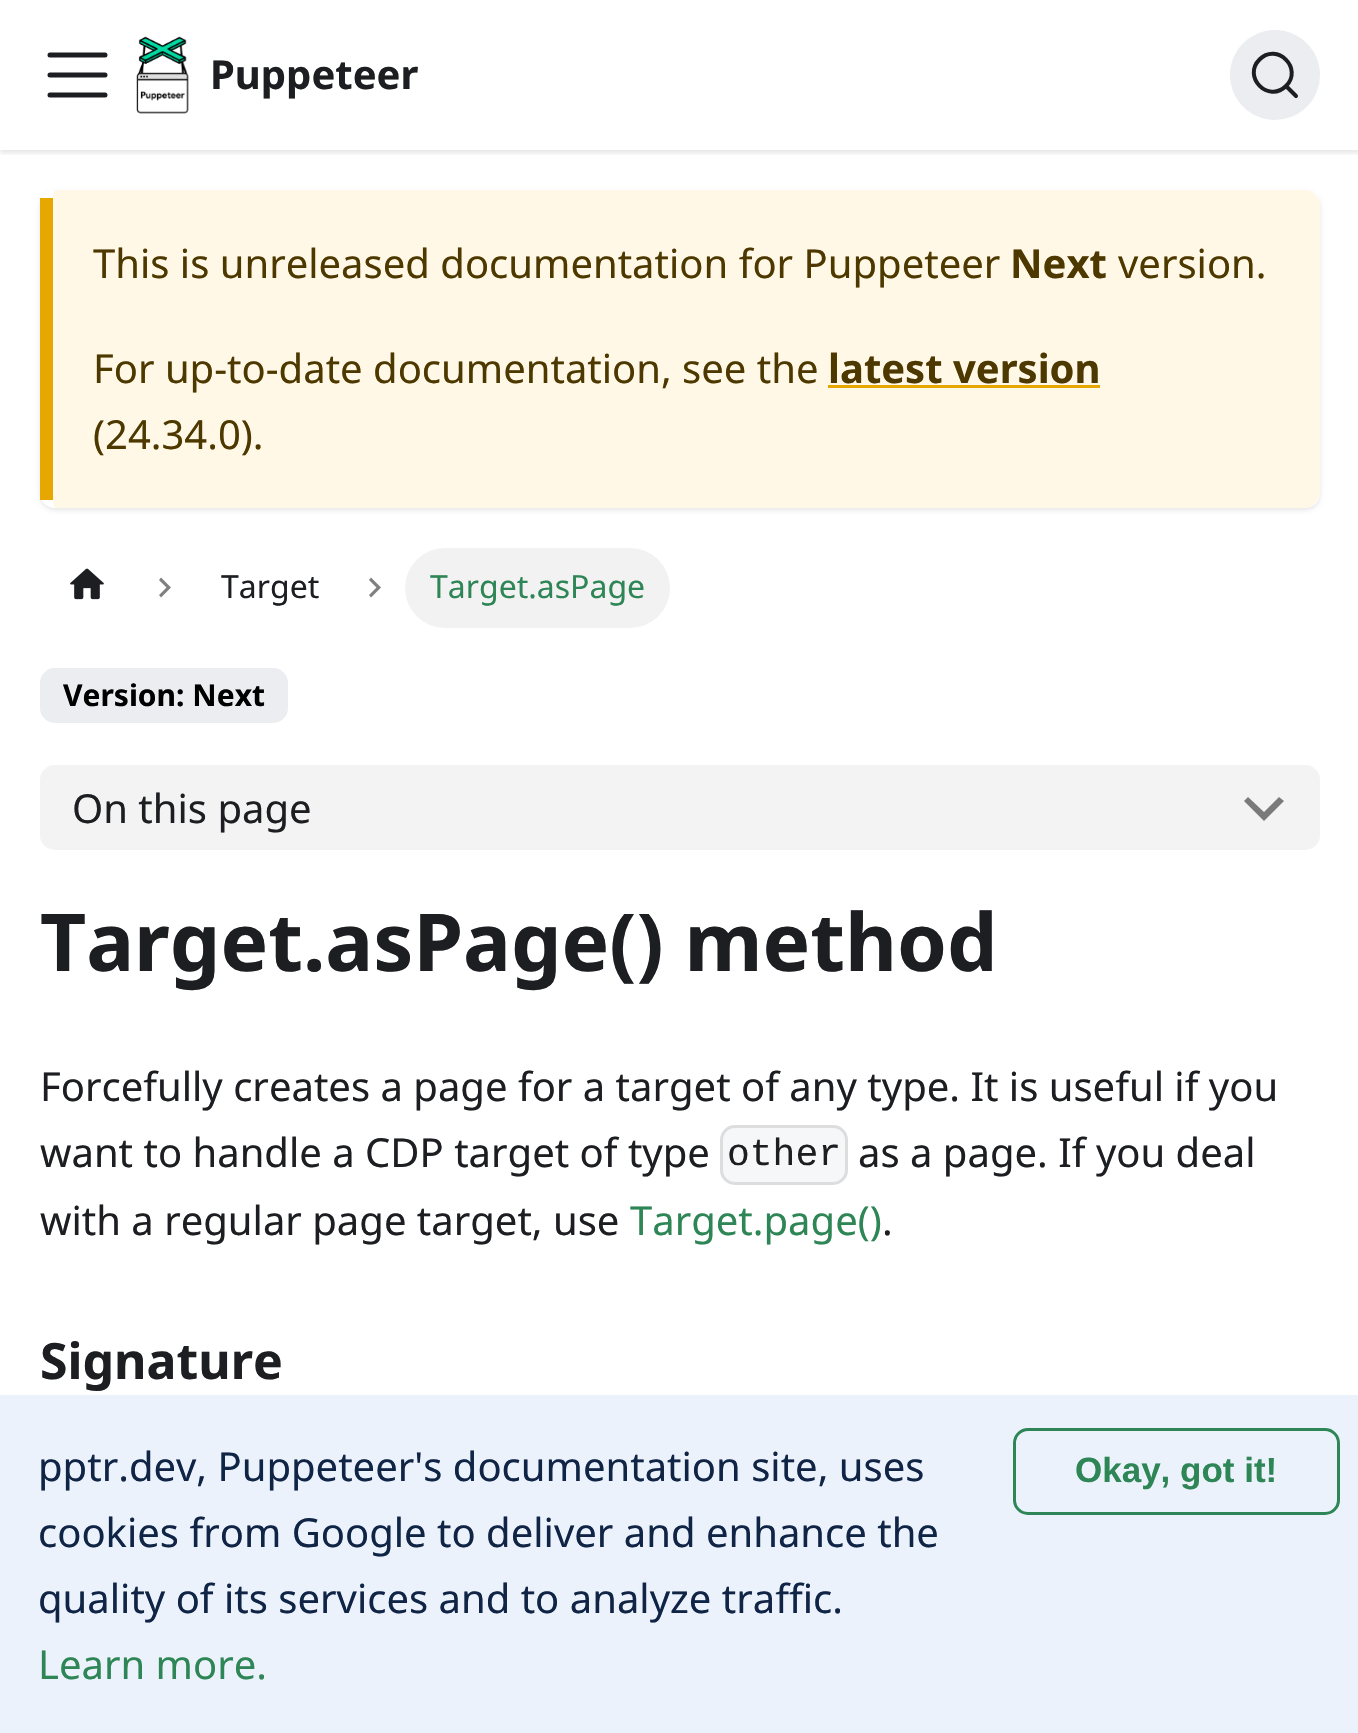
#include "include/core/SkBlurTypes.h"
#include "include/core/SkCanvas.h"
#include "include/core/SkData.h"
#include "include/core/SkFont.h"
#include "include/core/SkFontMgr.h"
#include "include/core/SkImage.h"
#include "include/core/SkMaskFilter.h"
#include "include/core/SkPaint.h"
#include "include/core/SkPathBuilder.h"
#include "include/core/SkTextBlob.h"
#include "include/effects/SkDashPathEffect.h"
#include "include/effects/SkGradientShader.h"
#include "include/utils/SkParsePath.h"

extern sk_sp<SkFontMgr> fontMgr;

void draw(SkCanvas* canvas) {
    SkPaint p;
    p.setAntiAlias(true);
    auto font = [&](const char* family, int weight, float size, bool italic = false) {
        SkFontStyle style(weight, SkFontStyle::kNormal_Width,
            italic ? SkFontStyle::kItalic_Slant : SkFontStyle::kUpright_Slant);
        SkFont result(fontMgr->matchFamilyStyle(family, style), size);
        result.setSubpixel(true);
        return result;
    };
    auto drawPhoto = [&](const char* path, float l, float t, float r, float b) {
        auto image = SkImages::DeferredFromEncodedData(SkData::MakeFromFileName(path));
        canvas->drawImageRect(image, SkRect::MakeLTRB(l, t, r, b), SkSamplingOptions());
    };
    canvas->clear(0xFFFFFFFF);
    canvas->save();
    canvas->clipRect(SkRect::MakeLTRB(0, 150, 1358, 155));
    p.setColor(0x1A000000);
    p.setMaskFilter(SkMaskFilter::MakeBlur(kNormal_SkBlurStyle, 2.5f));
    canvas->drawRect(SkRect::MakeLTRB(0, 3, 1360, 153), p);
    p.setMaskFilter(nullptr);
    canvas->restore();
    p.setStyle(SkPaint::kStroke_Style);
    p.setStrokeWidth(5);
    p.setStrokeCap(SkPaint::kRound_Cap);
    p.setColor(0xFF1C1E21);
    canvas->drawPath(SkPathBuilder().moveTo(50, 55).lineTo(105, 55).moveTo(50, 75).lineTo(105, 75).moveTo(50, 95).lineTo(105, 95).detach(), p);
    drawPhoto("media/1.png", 136, 36, 189, 114);
    auto font1 = font("Noto Sans", 700, 40);
    p.setStyle(SkPaint::kFill_Style);
    canvas->drawString("Puppeteer", 210, 89, font1, p);
    p.setColor(0xFFEBEDF0);
    canvas->drawCircle(1275, 75, 45, p);
    p.setStyle(SkPaint::kStroke_Style);
    p.setStrokeWidth(4);
    p.setStrokeJoin(SkPaint::kRound_Join);
    p.setColor(0xFF1C1E21);
    canvas->drawPath(SkPathBuilder().moveTo(1286, 86).lineTo(1296, 96).lineTo(1286, 86).cubicTo(1268.5f, 103.5f, 1242, 77, 1259.5f, 59.5f).cubicTo(1277, 42, 1303.5f, 68.5f, 1286, 86).close().detach(), p);
    canvas->save();
    canvas->clipPath(SkPathBuilder(SkPathFillType::kEvenOdd).moveTo(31, 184).lineTo(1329, 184).lineTo(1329, 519).lineTo(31, 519).close().moveTo(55, 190).lineTo(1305, 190).cubicTo(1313.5f, 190, 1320, 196.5f, 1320, 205).lineTo(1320, 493).cubicTo(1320, 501.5f, 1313.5f, 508, 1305, 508).lineTo(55, 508).cubicTo(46.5f, 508, 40, 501.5f, 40, 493).lineTo(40, 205).cubicTo(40, 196.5f, 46.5f, 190, 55, 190).close().detach(), true);
    p.setStyle(SkPaint::kFill_Style);
    p.setColor(0x1A000000);
    p.setMaskFilter(SkMaskFilter::MakeBlur(kNormal_SkBlurStyle, 2.5f));
    canvas->drawRoundRect(SkRect::MakeLTRB(40, 193, 1320, 510), 15, 15, p);
    p.setMaskFilter(nullptr);
    canvas->restore();
    p.setColor(0xFFFFF8E6);
    canvas->drawPath(SkPathBuilder().moveTo(56, 190).lineTo(1304, 190).cubicTo(1313, 190, 1320, 197, 1320, 206).lineTo(1320, 492).cubicTo(1320, 500, 1313, 508, 1304, 508).lineTo(56, 508).cubicTo(54, 508, 52, 500, 52, 492).lineTo(52, 206).cubicTo(52, 197, 54, 190, 56, 190).close().detach(), p);
    p.setColor(0xFFE6A700);
    canvas->drawRect(SkRect::MakeLTRB(40, 198, 53, 500), p);
    auto font2 = font("Noto Sans", 400, 40);
    p.setColor(0xFF4D3800);
    canvas->drawString("This is unreleased documentation for Puppeteer", 93, 278, font2, p);
    canvas->drawString("Next", 1010, 278, font1, p);
    canvas->drawString("version.", 1118, 278, font2, p);
    canvas->drawString("For up-to-date documentation, see the", 93, 383, font2, p);
    canvas->drawString("latest version", 828, 383, font1, p);
    p.setColor(0xFFE6A700);
    canvas->drawRect(SkRect::MakeLTRB(828, 385, 1100, 388), p);
    p.setColor(0xFF4D3800);
    canvas->drawString("(24.34.0).", 93, 449, font2, p);
    drawPhoto("media/2.png", 70, 568, 104, 600);
    p.setColor(0xFF808080);
    canvas->drawPath(SkPathBuilder().moveTo(161, 577.5f).lineTo(159, 580).lineTo(166.5f, 587.5f).lineTo(159, 595).lineTo(161, 597.5f).lineTo(171, 587.5f).close().detach(), p);
    auto font3 = font("Noto Sans", 400, 32);
    p.setColor(0xFF1C1E21);
    canvas->drawString("Target", 221, 598, font3, p);
    p.setColor(0xFF808080);
    canvas->drawPath(SkPathBuilder().moveTo(371, 577.5f).lineTo(369, 580).lineTo(376.5f, 587.5f).lineTo(369, 595).lineTo(371, 597.5f).lineTo(381, 587.5f).close().detach(), p);
    p.setColor(0xFFF2F2F2);
    canvas->drawRoundRect(SkRect::MakeLTRB(405, 548, 670, 628), 40, 40, p);
    p.setColor(0xFF2E8555);
    canvas->drawString("Target.asPage", 430, 598, font3, p);
    p.setColor(0xFFEBEDF0);
    canvas->drawRoundRect(SkRect::MakeLTRB(41.5f, 669.5f, 286.5f, 721.5f), 13.5f, 13.5f, p);
    p.setStyle(SkPaint::kStroke_Style);
    p.setStrokeWidth(3);
    p.setStrokeCap(SkPaint::kButt_Cap);
    p.setStrokeJoin(SkPaint::kMiter_Join);
    canvas->drawRoundRect(SkRect::MakeLTRB(41.5f, 669.5f, 286.5f, 721.5f), 13.5f, 13.5f, p);
    auto font4 = font("Noto Sans", 700, 30);
    p.setStyle(SkPaint::kFill_Style);
    p.setColor(0xFF000000);
    canvas->drawString("Version: Next", 63, 706, font4, p);
    p.setColor(0xFFF3F3F3);
    canvas->drawRoundRect(SkRect::MakeLTRB(40, 765, 1320, 850), 15, 15, p);
    p.setColor(0xFF1C1E21);
    canvas->drawString("On this page", 72, 823, font2, p);
    p.setColor(0xFF7A7A7A);
    canvas->drawPath(SkPathBuilder().moveTo(1279, 797).lineTo(1264, 812).lineTo(1248, 797).lineTo(1244, 801).lineTo(1264, 821).lineTo(1284, 801).close().detach(), p);
    auto font5 = font("Noto Sans", 700, 80);
    p.setColor(0xFF1C1E21);
    canvas->drawString("Target.asPage() method", 40, 971, font5, p);
    canvas->drawString("Forcefully creates a page for a target of any type. It is useful if you", 40, 1101, font2, p);
    canvas->drawString("want to handle a CDP target of type", 40, 1167, font2, p);
    p.setColor(0xFFF6F7F8);
    canvas->drawRoundRect(SkRect::MakeLTRB(720, 1125, 848, 1185), 15, 15, p);
    p.setStyle(SkPaint::kStroke_Style);
    p.setColor(0x1A000000);
    canvas->drawRoundRect(SkRect::MakeLTRB(721.5f, 1126.5f, 846.5f, 1183.5f), 13.5f, 13.5f, p);
    auto font6 = font("Liberation Mono", 400, 38);
    p.setStyle(SkPaint::kFill_Style);
    p.setColor(0xFF1C1E21);
    canvas->drawString("other", 727, 1165, font6, p);
    canvas->drawString("as a page. If you deal", 858, 1167, font2, p);
    canvas->drawString("with a regular page target, use", 40, 1235, font2, p);
    p.setColor(0xFF2E8555);
    canvas->drawString("Target.page()", 630, 1235, font2, p);
    p.setColor(0xFF1C1E21);
    canvas->drawString(".", 882, 1235, font2, p);
    auto font7 = font("Noto Sans", 700, 50);
    canvas->drawString("Signature", 40, 1379, font7, p);
    p.setColor(0xFFEBF2FC);
    canvas->drawRect(SkRect::MakeLTRB(0, 1395, 1358, 1733), p);
    p.setColor(0xFF102445);
    {
        const struct { const char* s; float x, y; } items[] = {
            {"pptr.dev, Puppeteer's documentation site, uses", 38, 1481},
            {"cookies from Google to deliver and enhance the", 38, 1547},
            {"quality of its services and to analyze traffic.", 38, 1613},
        };
        for (auto [s, x, y] : items) {
            canvas->drawString(s, x, y, font2, p);
        }
    }
    p.setColor(0xFF2E8555);
    canvas->drawString("Learn more.", 38, 1679, font2, p);
    p.setStyle(SkPaint::kStroke_Style);
    canvas->drawRoundRect(SkRect::MakeLTRB(1014.5f, 1429.5f, 1338.5f, 1513.5f), 13.5f, 13.5f, p);
    auto font8 = font("Liberation Sans", 700, 35);
    p.setStyle(SkPaint::kFill_Style);
    canvas->drawString("Okay, got it!", 1075, 1482, font8, p);
}
